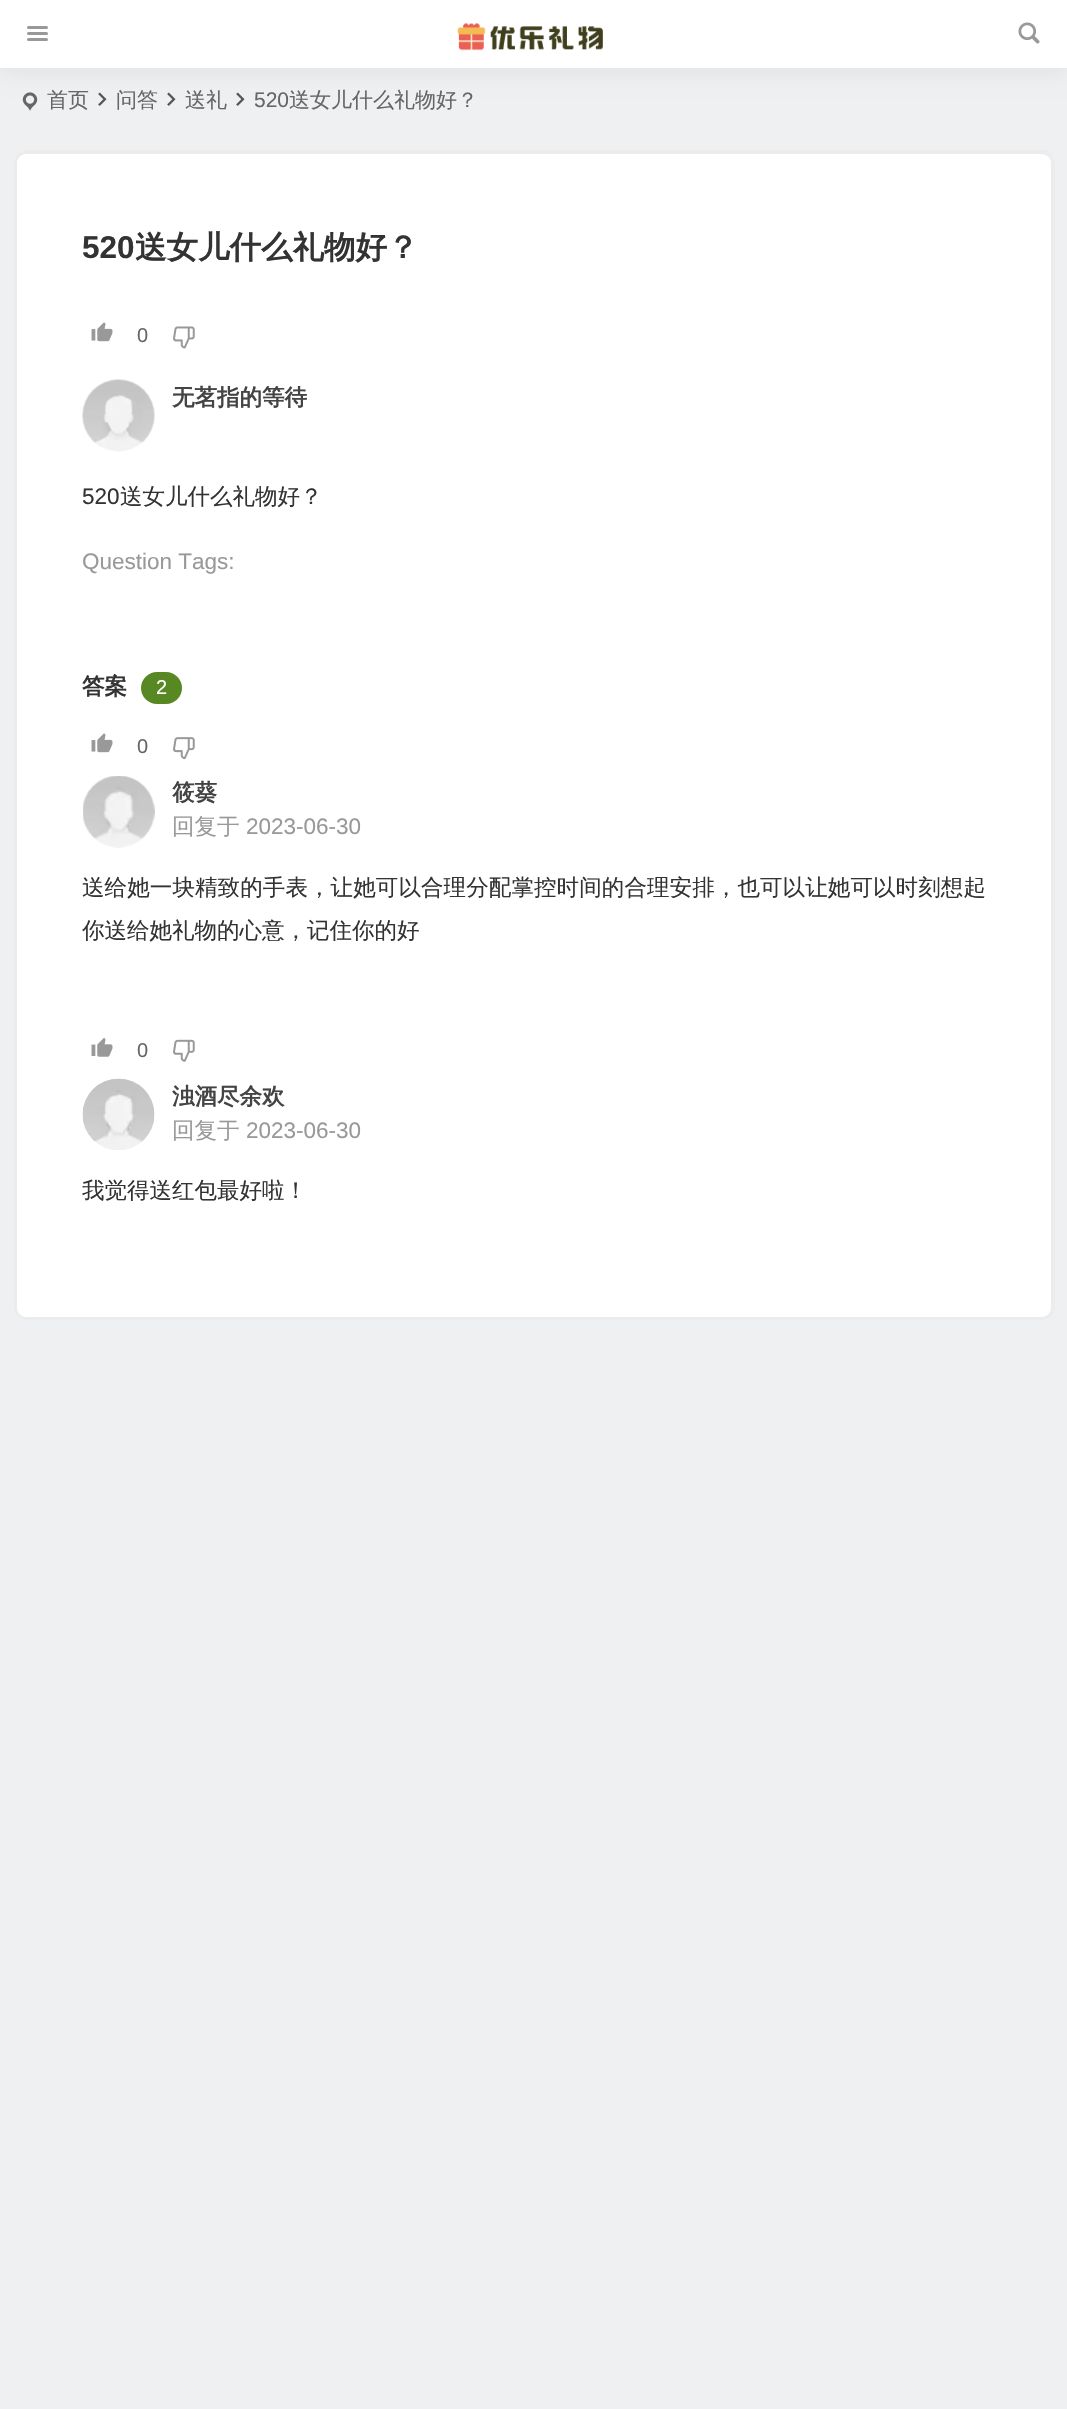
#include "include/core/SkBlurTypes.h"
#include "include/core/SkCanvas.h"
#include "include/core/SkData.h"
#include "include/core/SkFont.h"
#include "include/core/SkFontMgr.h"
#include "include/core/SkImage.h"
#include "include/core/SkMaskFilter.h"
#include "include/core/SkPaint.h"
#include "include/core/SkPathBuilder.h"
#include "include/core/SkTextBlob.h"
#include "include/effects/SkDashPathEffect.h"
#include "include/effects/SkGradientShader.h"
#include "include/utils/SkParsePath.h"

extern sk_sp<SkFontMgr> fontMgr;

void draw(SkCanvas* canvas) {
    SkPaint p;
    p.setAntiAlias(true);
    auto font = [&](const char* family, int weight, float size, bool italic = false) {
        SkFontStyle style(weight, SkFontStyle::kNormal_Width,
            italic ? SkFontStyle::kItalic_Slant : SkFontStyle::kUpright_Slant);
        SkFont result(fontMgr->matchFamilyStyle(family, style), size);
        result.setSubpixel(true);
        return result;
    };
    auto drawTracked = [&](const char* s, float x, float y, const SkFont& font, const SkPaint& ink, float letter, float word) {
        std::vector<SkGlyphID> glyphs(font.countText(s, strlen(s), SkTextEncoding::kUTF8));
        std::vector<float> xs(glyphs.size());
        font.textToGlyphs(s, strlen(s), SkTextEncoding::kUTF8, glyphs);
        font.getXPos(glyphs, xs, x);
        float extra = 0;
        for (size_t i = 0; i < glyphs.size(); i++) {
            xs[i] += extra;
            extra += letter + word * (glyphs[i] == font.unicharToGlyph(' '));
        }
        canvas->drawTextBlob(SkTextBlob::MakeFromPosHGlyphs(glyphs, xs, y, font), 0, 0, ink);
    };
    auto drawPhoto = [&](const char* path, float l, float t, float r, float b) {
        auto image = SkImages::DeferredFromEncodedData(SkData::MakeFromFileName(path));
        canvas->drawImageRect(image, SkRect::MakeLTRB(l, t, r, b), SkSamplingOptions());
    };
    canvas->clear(0xFFEFF0F2);
    drawPhoto("media/3.png", 22, 92, 38, 111);
    drawPhoto("media/4.png", 98, 92, 107, 106);
    drawPhoto("media/4.png", 167, 92, 176, 106);
    drawPhoto("media/4.png", 236, 92, 245, 106);
    p.setColor(0x0F000000);
    p.setMaskFilter(SkMaskFilter::MakeBlur(kNormal_SkBlurStyle, 11));
    canvas->drawRect(SkRect::MakeLTRB(0, 5, 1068, 72), p);
    p.setMaskFilter(nullptr);
    p.setColor(0xFFFFFFFF);
    canvas->drawRect(SkRect::MakeLTRB(0, 0, 1067, 68), p);
    p.setColor(0xFF999999);
    canvas->drawRoundRect(SkRect::MakeLTRB(27, 32, 48, 35), 1.5f, 1.5f, p);
    canvas->drawRoundRect(SkRect::MakeLTRB(27, 26, 48, 29), 1.5f, 1.5f, p);
    canvas->drawRoundRect(SkRect::MakeLTRB(27, 38, 48, 41), 1.5f, 1.5f, p);
    drawPhoto("media/1.png", 457, 18, 603, 51);
    drawPhoto("media/2.png", 1018, 22, 1040, 44);
    auto font1 = font("WenQuanYi Zen Hei", 500, 21);
    p.setColor(0xFF666666);
    {
        const struct { const char* s; float x, y; } items[] = {
            {"首页", 47, 107},
            {"问答", 116, 107},
            {"送礼", 185, 107},
        };
        for (auto [s, x, y] : items) {
            canvas->drawString(s, x, y, font1, p);
        }
    }
    auto font2 = font("Liberation Sans", 400, 21);
    canvas->drawString("520", 254, 107, font2, p);
    canvas->drawString("送女儿什么礼物好？", 289, 107, font1, p);
    p.setColor(0xFFFFFFFF);
    canvas->drawRoundRect(SkRect::MakeLTRB(14, 150, 1055, 1320), 12, 12, p);
    p.setStyle(SkPaint::kStroke_Style);
    p.setStrokeWidth(2);
    p.setColor(0xFFECECEC);
    canvas->drawRoundRect(SkRect::MakeLTRB(16, 153, 1052, 1318), 10, 10, p);
    canvas->drawRoundRect(SkRect::MakeLTRB(15, 151, 1054, 1319), 11, 11, p);
    auto font3 = font("Liberation Sans", 700, 31.5f);
    p.setStyle(SkPaint::kFill_Style);
    p.setColor(0xFF333333);
    canvas->drawString("520", 82, 258, font3, p);
    auto font4 = font("WenQuanYi Zen Hei", 700, 31.5f);
    canvas->drawString("送女儿什么礼物好？", 135, 258, font4, p);
    drawPhoto("media/5.png", 91, 322, 113, 342);
    auto font5 = font("Liberation Sans", 400, 20);
    p.setColor(0xFF666666);
    canvas->drawString("0", 137, 342, font5, p);
    drawPhoto("media/6.png", 173, 326, 195, 349);
    drawPhoto("media/7.png", 82, 379, 155, 452);
    auto font6 = font("WenQuanYi Zen Hei", 700, 22.5f);
    p.setColor(0xFF444444);
    canvas->drawString("无茗指的等待", 172, 405, font6, p);
    auto font7 = font("Liberation Sans", 400, 22.5f);
    p.setColor(0xFF333333);
    canvas->drawString("520", 82, 504, font7, p);
    auto font8 = font("WenQuanYi Zen Hei", 500, 22.5f);
    canvas->drawString("送女儿什么礼物好？", 120, 504, font8, p);
    p.setColor(0xFF999999);
    canvas->drawString("Question Tags:", 82, 569, font7, p);
    p.setColor(0xFF333333);
    canvas->drawString("答案", 82, 694, font6, p);
    p.setColor(0xFF578824);
    canvas->drawRoundRect(SkRect::MakeLTRB(141, 672, 182, 704), 16, 16, p);
    p.setColor(0xFFFFFFFF);
    canvas->drawString("2", 156, 694, font5, p);
    drawPhoto("media/5.png", 91, 733, 113, 753);
    p.setColor(0xFF666666);
    canvas->drawString("0", 137, 753, font5, p);
    drawPhoto("media/8.png", 173, 737, 195, 760);
    drawPhoto("media/9.png", 83, 776, 155, 848);
    p.setColor(0xFF444444);
    canvas->drawString("筱葵", 172, 800, font6, p);
    p.setColor(0xFF999999);
    canvas->drawString("回复于", 172, 834, font8, p);
    canvas->drawString("2023-06-30", 246, 834, font7, p);
    p.setColor(0xFF333333);
    drawTracked("送给她一块精致的手表，让她可以合理分配掌控时间的合理安排，也可以让她可以时刻想起", 82, 895, font8, p, 0.1f, 0);
    canvas->drawString("你送给她礼物的心意，记住你的好", 82, 938, font8, p);
    drawPhoto("media/10.png", 91, 1037, 113, 1057);
    p.setColor(0xFF666666);
    canvas->drawString("0", 137, 1057, font5, p);
    drawPhoto("media/11.png", 173, 1039, 195, 1062);
    drawPhoto("media/12.png", 82, 1078, 155, 1150);
    p.setColor(0xFF444444);
    canvas->drawString("浊酒尽余欢", 172, 1104, font6, p);
    p.setColor(0xFF999999);
    canvas->drawString("回复于", 172, 1138, font8, p);
    canvas->drawString("2023-06-30", 246, 1138, font7, p);
    p.setColor(0xFF333333);
    canvas->drawString("我觉得送红包最好啦！", 82, 1198, font8, p);
}
